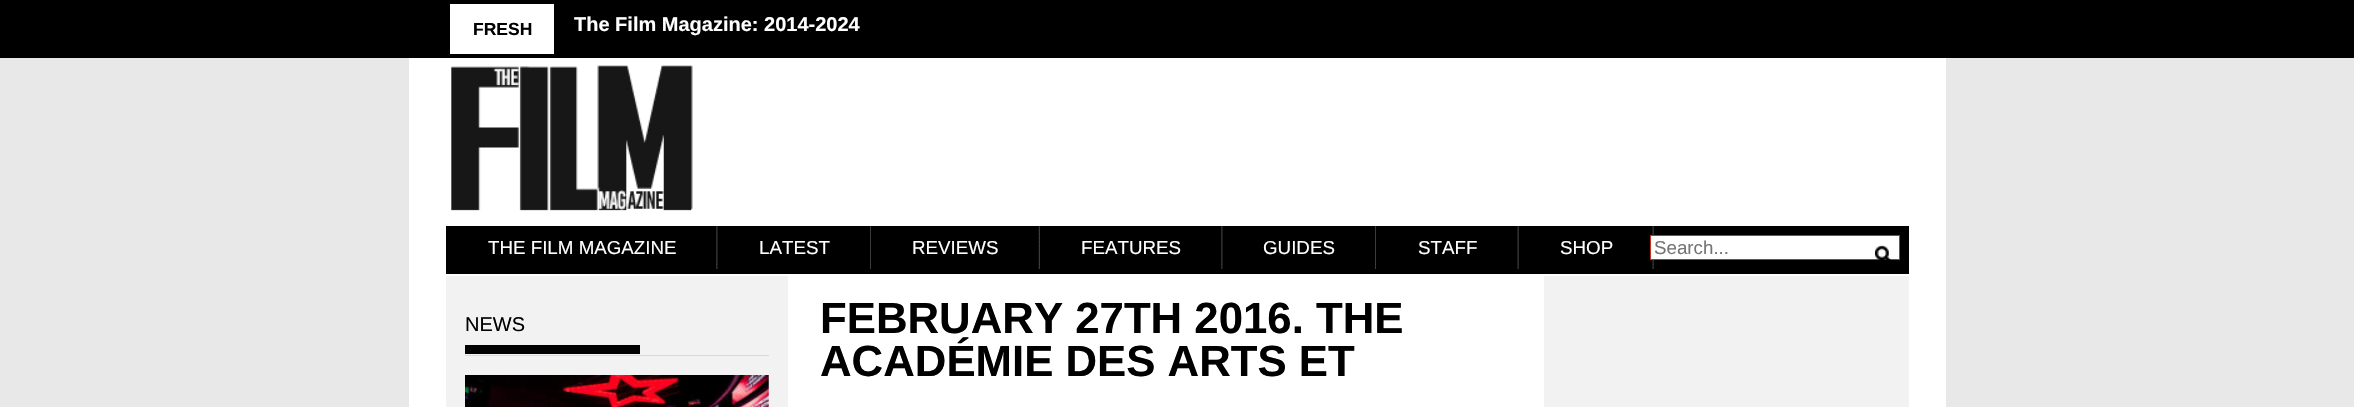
#include "include/core/SkBlurTypes.h"
#include "include/core/SkCanvas.h"
#include "include/core/SkData.h"
#include "include/core/SkFont.h"
#include "include/core/SkFontMgr.h"
#include "include/core/SkImage.h"
#include "include/core/SkMaskFilter.h"
#include "include/core/SkPaint.h"
#include "include/core/SkPathBuilder.h"
#include "include/core/SkTextBlob.h"
#include "include/effects/SkDashPathEffect.h"
#include "include/effects/SkGradientShader.h"
#include "include/utils/SkParsePath.h"

extern sk_sp<SkFontMgr> fontMgr;

void draw(SkCanvas* canvas) {
    SkPaint p;
    p.setAntiAlias(true);
    auto font = [&](const char* family, int weight, float size, bool italic = false) {
        SkFontStyle style(weight, SkFontStyle::kNormal_Width,
            italic ? SkFontStyle::kItalic_Slant : SkFontStyle::kUpright_Slant);
        SkFont result(fontMgr->matchFamilyStyle(family, style), size);
        result.setSubpixel(true);
        return result;
    };
    auto drawPhoto = [&](const char* path, float l, float t, float r, float b) {
        auto image = SkImages::DeferredFromEncodedData(SkData::MakeFromFileName(path));
        canvas->drawImageRect(image, SkRect::MakeLTRB(l, t, r, b), SkSamplingOptions());
    };
    canvas->clear(0xFFE8E8E8);
    p.setColor(0xFF000000);
    canvas->drawRect(SkRect::MakeLTRB(0, 0, 2354, 58), p);
    p.setColor(0xFFFFFFFF);
    canvas->drawRect(SkRect::MakeLTRB(450, 4, 554, 54), p);
    auto font1 = font("Liberation Sans", 700, 17.5f);
    p.setColor(0xFF000000);
    canvas->drawString("FRESH", 473, 35, font1, p);
    auto font2 = font("Liberation Sans", 700, 20);
    p.setColor(0xFFFFFFFF);
    canvas->drawString("The Film Magazine: 2014-2024", 574, 31, font2, p);
    canvas->drawRect(SkRect::MakeLTRB(409, 58, 1946, 407), p);
    drawPhoto("media/1.png", 451, 65, 693, 211);
    p.setColor(0xFF000000);
    canvas->drawRect(SkRect::MakeLTRB(446, 226, 1909, 274), p);
    drawPhoto("media/2.png", 716, 226, 718, 269);
    auto font3 = font("Liberation Sans", 400, 18.75f);
    p.setColor(0xFFFFFFFF);
    canvas->drawString("THE FILM MAGAZINE", 488, 254, font3, p);
    drawPhoto("media/3.png", 870, 226, 871, 269);
    canvas->drawString("LATEST", 759, 254, font3, p);
    drawPhoto("media/4.png", 1038, 226, 1040, 269);
    canvas->drawString("REVIEWS", 912, 254, font3, p);
    drawPhoto("media/2.png", 1221, 226, 1223, 269);
    canvas->drawString("FEATURES", 1081, 254, font3, p);
    drawPhoto("media/3.png", 1375, 226, 1376, 269);
    canvas->drawString("GUIDES", 1263, 254, font3, p);
    drawPhoto("media/5.png", 1517, 226, 1519, 269);
    canvas->drawString("STAFF", 1418, 254, font3, p);
    drawPhoto("media/5.png", 1652, 226, 1654, 269);
    canvas->drawString("SHOP", 1560, 254, font3, p);
    canvas->drawRect(SkRect::MakeLTRB(1650.5f, 235.5f, 1899.5f, 259.5f), p);
    p.setStyle(SkPaint::kStroke_Style);
    p.setStrokeWidth(1);
    p.setColor(0xFFCA2F1A);
    canvas->drawRect(SkRect::MakeLTRB(1650.5f, 235.5f, 1899.5f, 259.5f), p);
    p.setStyle(SkPaint::kFill_Style);
    p.setColor(0xFF757575);
    canvas->drawString("Search...", 1654, 254, font3, p);
    drawPhoto("media/6.png", 1875, 245, 1892, 260);
    p.setColor(0xFFF2F2F2);
    canvas->drawRect(SkRect::MakeLTRB(446, 276, 788, 407), p);
    p.setColor(0xFFD9D9D9);
    canvas->drawRect(SkRect::MakeLTRB(465, 355, 769, 356), p);
    auto font4 = font("Liberation Sans", 400, 20);
    p.setColor(0xFF000000);
    canvas->drawString("NEWS", 465, 331, font4, p);
    canvas->drawRect(SkRect::MakeLTRB(465, 345, 640, 354), p);
    drawPhoto("media/7.png", 465, 375, 769, 407);
    auto font5 = font("Liberation Sans", 700, 43.75f);
    canvas->drawString("FEBRUARY 27TH 2016. THE", 820, 333, font5, p);
    canvas->drawString("ACADÉMIE DES ARTS ET", 820, 376, font5, p);
    p.setColor(0xFFF2F2F2);
    canvas->drawRect(SkRect::MakeLTRB(1544, 276, 1909, 407), p);
}
